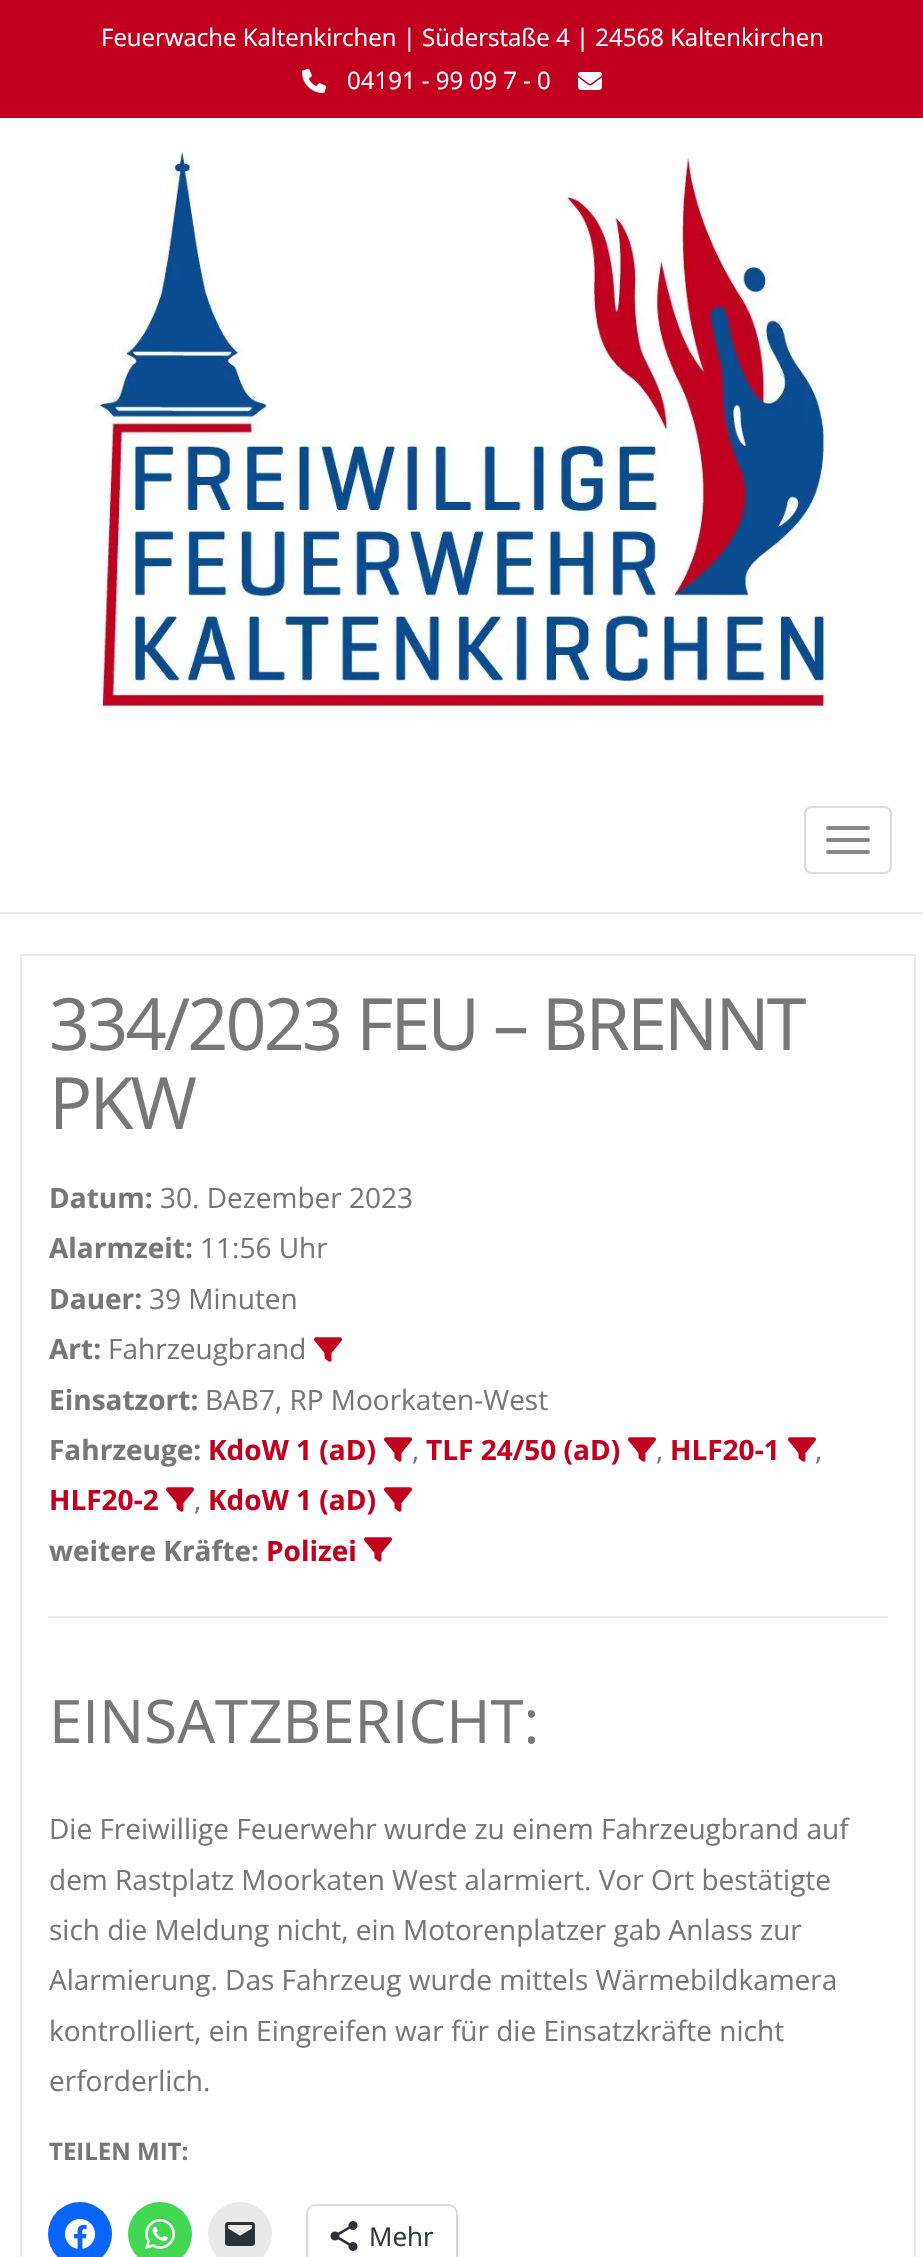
#include "include/core/SkBlurTypes.h"
#include "include/core/SkCanvas.h"
#include "include/core/SkData.h"
#include "include/core/SkFont.h"
#include "include/core/SkFontMgr.h"
#include "include/core/SkImage.h"
#include "include/core/SkMaskFilter.h"
#include "include/core/SkPaint.h"
#include "include/core/SkPathBuilder.h"
#include "include/core/SkTextBlob.h"
#include "include/effects/SkDashPathEffect.h"
#include "include/effects/SkGradientShader.h"
#include "include/utils/SkParsePath.h"

extern sk_sp<SkFontMgr> fontMgr;

void draw(SkCanvas* canvas) {
    SkPaint p;
    p.setAntiAlias(true);
    auto font = [&](const char* family, int weight, float size, bool italic = false) {
        SkFontStyle style(weight, SkFontStyle::kNormal_Width,
            italic ? SkFontStyle::kItalic_Slant : SkFontStyle::kUpright_Slant);
        SkFont result(fontMgr->matchFamilyStyle(family, style), size);
        result.setSubpixel(true);
        return result;
    };
    auto drawTracked = [&](const char* s, float x, float y, const SkFont& font, const SkPaint& ink, float letter, float word) {
        std::vector<SkGlyphID> glyphs(font.countText(s, strlen(s), SkTextEncoding::kUTF8));
        std::vector<float> xs(glyphs.size());
        font.textToGlyphs(s, strlen(s), SkTextEncoding::kUTF8, glyphs);
        font.getXPos(glyphs, xs, x);
        float extra = 0;
        for (size_t i = 0; i < glyphs.size(); i++) {
            xs[i] += extra;
            extra += letter + word * (glyphs[i] == font.unicharToGlyph(' '));
        }
        canvas->drawTextBlob(SkTextBlob::MakeFromPosHGlyphs(glyphs, xs, y, font), 0, 0, ink);
    };
    auto drawPhoto = [&](const char* path, float l, float t, float r, float b) {
        auto image = SkImages::DeferredFromEncodedData(SkData::MakeFromFileName(path));
        canvas->drawImageRect(image, SkRect::MakeLTRB(l, t, r, b), SkSamplingOptions());
    };
    canvas->clear(0xFFFFFFFF);
    p.setColor(0xFFC1001F);
    canvas->drawRect(SkRect::MakeLTRB(0, 0, 923, 118), p);
    auto font1 = font("Open Sans", 400, 24);
    p.setColor(0xFFFFFFFF);
    canvas->drawString("Feuerwache Kaltenkirchen | Süderstaße 4 | 24568 Kaltenkirchen", 101, 46, font1, p);
    drawPhoto("media/1.png", 302, 69, 326, 93);
    canvas->drawString("04191 - 99 09 7 - 0", 347, 89, font1, p);
    drawPhoto("media/2.png", 578, 72, 602, 90);
    p.setColor(0xFFEAEAEA);
    canvas->drawRect(SkRect::MakeLTRB(0, 912, 923, 914), p);
    drawPhoto("media/3.png", 94, 151, 830, 709);
    p.setStyle(SkPaint::kStroke_Style);
    p.setStrokeWidth(2);
    p.setColor(0xFFDDDDDD);
    canvas->drawRoundRect(SkRect::MakeLTRB(805, 807, 891, 873), 7, 7, p);
    p.setStyle(SkPaint::kFill_Style);
    p.setColor(0xFF888888);
    canvas->drawRoundRect(SkRect::MakeLTRB(826, 826, 870, 830), 2, 2, p);
    canvas->drawRoundRect(SkRect::MakeLTRB(826, 838, 870, 842), 2, 2, p);
    canvas->drawRoundRect(SkRect::MakeLTRB(826, 850, 870, 854), 2, 2, p);
    p.setStyle(SkPaint::kStroke_Style);
    p.setColor(0xFFEAEAEA);
    canvas->drawRect(SkRect::MakeLTRB(21, 955, 915, 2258), p);
    auto font2 = font("Open Sans", 400, 72);
    p.setStyle(SkPaint::kFill_Style);
    p.setColor(0xFF777777);
    drawTracked("334/2023 FEU – BRENNT", 49, 1050, font2, p, -2.9f, 0);
    drawTracked("PKW", 49, 1129, font2, p, -2.9f, 0);
    auto font3 = font("Open Sans", 700, 28);
    canvas->drawString("Datum:", 49, 1208, font3, p);
    auto font4 = font("Open Sans", 400, 28);
    canvas->drawString("30. Dezember 2023", 160, 1208, font4, p);
    canvas->drawString("Alarmzeit:", 49, 1258, font3, p);
    canvas->drawString("11:56 Uhr", 200, 1258, font4, p);
    canvas->drawString("Dauer:", 49, 1309, font3, p);
    canvas->drawString("39 Minuten", 149, 1309, font4, p);
    canvas->drawString("Art:", 49, 1359, font3, p);
    canvas->drawString("Fahrzeugbrand", 108, 1359, font4, p);
    drawPhoto("media/4.png", 314, 1337, 342, 1362);
    canvas->drawString("Einsatzort:", 49, 1410, font3, p);
    canvas->drawString("BAB7, RP Moorkaten-West", 205, 1410, font4, p);
    canvas->drawString("Fahrzeuge:", 49, 1460, font3, p);
    p.setColor(0xFFC1001F);
    canvas->drawString("KdoW 1 (aD)", 208, 1460, font3, p);
    drawPhoto("media/4.png", 384, 1437, 412, 1462);
    p.setColor(0xFF777777);
    canvas->drawString(",", 412, 1460, font4, p);
    p.setColor(0xFFC1001F);
    canvas->drawString("TLF 24/50 (aD)", 426, 1460, font3, p);
    drawPhoto("media/4.png", 628, 1437, 656, 1462);
    p.setColor(0xFF777777);
    canvas->drawString(",", 656, 1460, font4, p);
    p.setColor(0xFFC1001F);
    canvas->drawString("HLF20-1", 670, 1460, font3, p);
    drawPhoto("media/4.png", 788, 1437, 816, 1462);
    p.setColor(0xFF777777);
    canvas->drawString(",", 815, 1460, font4, p);
    p.setColor(0xFFC1001F);
    canvas->drawString("HLF20-2", 49, 1510, font3, p);
    drawPhoto("media/4.png", 166, 1487, 194, 1512);
    p.setColor(0xFF777777);
    canvas->drawString(",", 194, 1510, font4, p);
    p.setColor(0xFFC1001F);
    canvas->drawString("KdoW 1 (aD)", 208, 1510, font3, p);
    drawPhoto("media/4.png", 384, 1487, 412, 1512);
    p.setColor(0xFF777777);
    canvas->drawString("weitere Kräfte:", 49, 1561, font3, p);
    p.setColor(0xFFC1001F);
    canvas->drawString("Polizei", 266, 1561, font3, p);
    drawPhoto("media/4.png", 364, 1537, 392, 1562);
    p.setColor(0xFFEEEEEE);
    canvas->drawRect(SkRect::MakeLTRB(48, 1616, 888, 1618), p);
    auto font5 = font("Open Sans", 400, 60);
    p.setColor(0xFF777777);
    canvas->drawString("EINSATZBERICHT:", 49, 1743, font5, p);
    {
        const struct { const char* s; float x, y; } items[] = {
            {"Die Freiwillige Feuerwehr wurde zu einem Fahrzeugbrand auf", 49, 1839},
            {"dem Rastplatz Moorkaten West alarmiert. Vor Ort bestätigte", 49, 1890},
            {"sich die Meldung nicht, ein Motorenplatzer gab Anlass zur", 49, 1940},
            {"Alarmierung. Das Fahrzeug wurde mittels Wärmebildkamera", 49, 1990},
            {"kontrolliert, ein Eingreifen war für die Einsatzkräfte nicht", 49, 2041},
            {"erforderlich.", 49, 2091},
        };
        for (auto [s, x, y] : items) {
            canvas->drawString(s, x, y, font4, p);
        }
    }
    auto font6 = font("Open Sans", 700, 24);
    canvas->drawString("TEILEN MIT:", 49, 2160, font6, p);
    p.setColor(0xFF0866FF);
    canvas->drawCircle(80, 2234, 32, p);
    drawPhoto("media/5.png", 65, 2219, 95, 2249);
    p.setColor(0xFF43D854);
    canvas->drawCircle(160, 2234, 32, p);
    drawPhoto("media/6.png", 145, 2219, 175, 2249);
    p.setColor(0xFFE9E9E9);
    canvas->drawCircle(240, 2234, 32, p);
    drawPhoto("media/7.png", 225, 2222, 255, 2246);
    p.setStyle(SkPaint::kStroke_Style);
    p.setColor(0xFFE0E0E0);
    canvas->drawRoundRect(SkRect::MakeLTRB(307, 2205, 457, 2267), 9, 9, p);
    p.setStyle(SkPaint::kFill_Style);
    p.setColor(0x1F000000);
    p.setMaskFilter(SkMaskFilter::MakeBlur(kNormal_SkBlurStyle, 2));
    canvas->drawRoundRect(SkRect::MakeLTRB(308, 2208, 456, 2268), 8, 8, p);
    p.setMaskFilter(nullptr);
    p.setColor(0xFFFFFFFF);
    canvas->drawRoundRect(SkRect::MakeLTRB(308, 2206, 456, 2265), 8, 8, p);
    drawPhoto("media/8.png", 330, 2221, 358, 2251);
    auto font7 = font("Open Sans", 400, 26);
    p.setColor(0xFF2C3338);
    canvas->drawString("Mehr", 369, 2246, font7, p);
}
